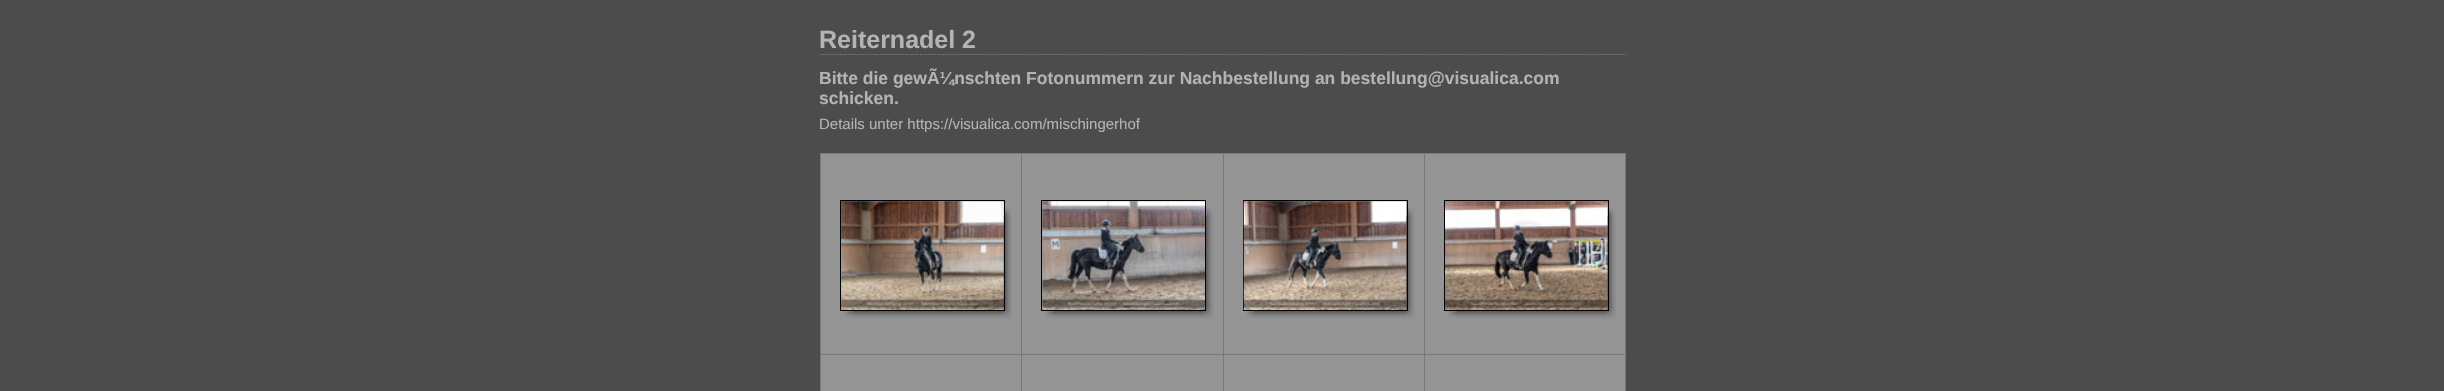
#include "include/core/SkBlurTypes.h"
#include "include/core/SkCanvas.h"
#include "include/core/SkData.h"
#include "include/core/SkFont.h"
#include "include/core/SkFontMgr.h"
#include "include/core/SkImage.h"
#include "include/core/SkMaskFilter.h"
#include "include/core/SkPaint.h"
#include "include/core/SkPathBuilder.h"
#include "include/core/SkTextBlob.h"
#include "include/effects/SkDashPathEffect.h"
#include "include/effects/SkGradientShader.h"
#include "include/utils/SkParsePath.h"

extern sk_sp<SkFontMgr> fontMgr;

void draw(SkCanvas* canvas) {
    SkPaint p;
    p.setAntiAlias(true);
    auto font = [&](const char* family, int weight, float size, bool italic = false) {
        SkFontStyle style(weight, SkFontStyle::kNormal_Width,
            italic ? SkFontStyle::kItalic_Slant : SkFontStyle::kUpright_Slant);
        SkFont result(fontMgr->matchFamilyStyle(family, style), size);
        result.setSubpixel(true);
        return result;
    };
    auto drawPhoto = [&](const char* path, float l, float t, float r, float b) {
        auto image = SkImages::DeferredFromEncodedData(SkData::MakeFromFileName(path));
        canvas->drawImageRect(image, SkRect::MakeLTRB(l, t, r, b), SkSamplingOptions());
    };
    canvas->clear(0xFF4C4C4C);
    p.setStyle(SkPaint::kStroke_Style);
    p.setStrokeWidth(1.2f);
    p.setColor(0xFF7F7F7F);
    p.setPathEffect(SkDashPathEffect::Make({{1.25f, 1.25f}}, 0));
    canvas->drawPath(SkPathBuilder().moveTo(820, 54.5f).lineTo(1626, 54.5f).detach(), p);
    p.setPathEffect(nullptr);
    auto font1 = font("Liberation Sans", 700, 25);
    p.setStyle(SkPaint::kFill_Style);
    p.setColor(0xFFB3B3B3);
    canvas->drawString("Reiternadel 2", 819, 48, font1, p);
    auto font2 = font("Liberation Sans", 700, 17.5f);
    canvas->drawString("Bitte die gewÃ¼nschten Fotonummern zur Nachbestellung an bestellung@visualica.com", 819, 84, font2, p);
    canvas->drawString("schicken.", 819, 104, font2, p);
    auto font3 = font("Liberation Sans", 400, 15);
    canvas->drawString("Details unter https://visualica.com/mischingerhof", 819, 129, font3, p);
    {
        const struct { float l, t, r, b; SkColor color; } items[] = {
            {821, 154, 1021, 354, 0xFF949494},
            {820, 153, 1626, 154, 0xFF787878},
            {820, 153, 821, 354, 0xFF787878},
        };
        for (auto [l, t, r, b, color] : items) {
            p.setColor(color);
            canvas->drawRect(SkRect::MakeLTRB(l, t, r, b), p);
        }
    }
    drawPhoto("media/1.png", 852, 216, 1012, 319);
    p.setStyle(SkPaint::kStroke_Style);
    p.setStrokeWidth(1);
    p.setColor(0xFF000000);
    canvas->drawRect(SkRect::MakeLTRB(840.5f, 200.5f, 1004.5f, 310.5f), p);
    drawPhoto("media/2.png", 841, 201, 1004, 310);
    drawPhoto("media/3.png", 1005, 207, 1012, 217);
    drawPhoto("media/4.png", 843, 311, 853, 318);
    p.setStyle(SkPaint::kFill_Style);
    p.setColor(0xFF949494);
    canvas->drawRect(SkRect::MakeLTRB(1022, 154, 1223, 354), p);
    p.setColor(0xFF787878);
    canvas->drawRect(SkRect::MakeLTRB(1021, 153, 1022, 354), p);
    drawPhoto("media/5.png", 1053, 216, 1214, 319);
    p.setStyle(SkPaint::kStroke_Style);
    p.setColor(0xFF000000);
    canvas->drawRect(SkRect::MakeLTRB(1041.5f, 200.5f, 1205.5f, 310.5f), p);
    drawPhoto("media/6.png", 1042, 201, 1205, 310);
    drawPhoto("media/7.png", 1206, 207, 1213, 217);
    drawPhoto("media/8.png", 1044, 311, 1054, 318);
    p.setStyle(SkPaint::kFill_Style);
    p.setColor(0xFF949494);
    canvas->drawRect(SkRect::MakeLTRB(1224, 154, 1424, 354), p);
    p.setColor(0xFF787878);
    canvas->drawRect(SkRect::MakeLTRB(1223, 153, 1224, 354), p);
    drawPhoto("media/9.png", 1255, 216, 1415, 319);
    p.setStyle(SkPaint::kStroke_Style);
    p.setColor(0xFF000000);
    canvas->drawRect(SkRect::MakeLTRB(1243.5f, 200.5f, 1407.5f, 310.5f), p);
    drawPhoto("media/10.png", 1243, 201, 1407, 310);
    drawPhoto("media/11.png", 1408, 207, 1414, 217);
    drawPhoto("media/12.png", 1246, 311, 1255, 318);
    p.setStyle(SkPaint::kFill_Style);
    {
        const struct { float l, t, r, b; SkColor color; } items[] = {
            {1425, 154, 1625, 354, 0xFF949494},
            {1625, 153, 1626, 354, 0xFF787878},
            {1424, 153, 1425, 354, 0xFF787878},
        };
        for (auto [l, t, r, b, color] : items) {
            p.setColor(color);
            canvas->drawRect(SkRect::MakeLTRB(l, t, r, b), p);
        }
    }
    drawPhoto("media/13.png", 1456, 216, 1616, 319);
    p.setStyle(SkPaint::kStroke_Style);
    p.setColor(0xFF000000);
    canvas->drawRect(SkRect::MakeLTRB(1444.5f, 200.5f, 1608.5f, 310.5f), p);
    drawPhoto("media/14.png", 1445, 201, 1608, 310);
    drawPhoto("media/15.png", 1609, 207, 1615, 217);
    drawPhoto("media/16.png", 1447, 311, 1457, 318);
    p.setStyle(SkPaint::kFill_Style);
    {
        const struct { float l, t, r, b; SkColor color; } items[] = {
            {821, 355, 1021, 391, 0xFF949494},
            {820, 354, 1626, 355, 0xFF787878},
            {820, 354, 821, 391, 0xFF787878},
            {1022, 355, 1223, 391, 0xFF949494},
            {1021, 354, 1022, 391, 0xFF787878},
            {1224, 355, 1424, 391, 0xFF949494},
            {1223, 354, 1224, 391, 0xFF787878},
            {1425, 355, 1625, 391, 0xFF949494},
            {1625, 354, 1626, 391, 0xFF787878},
            {1424, 354, 1425, 391, 0xFF787878},
        };
        for (auto [l, t, r, b, color] : items) {
            p.setColor(color);
            canvas->drawRect(SkRect::MakeLTRB(l, t, r, b), p);
        }
    }
}
